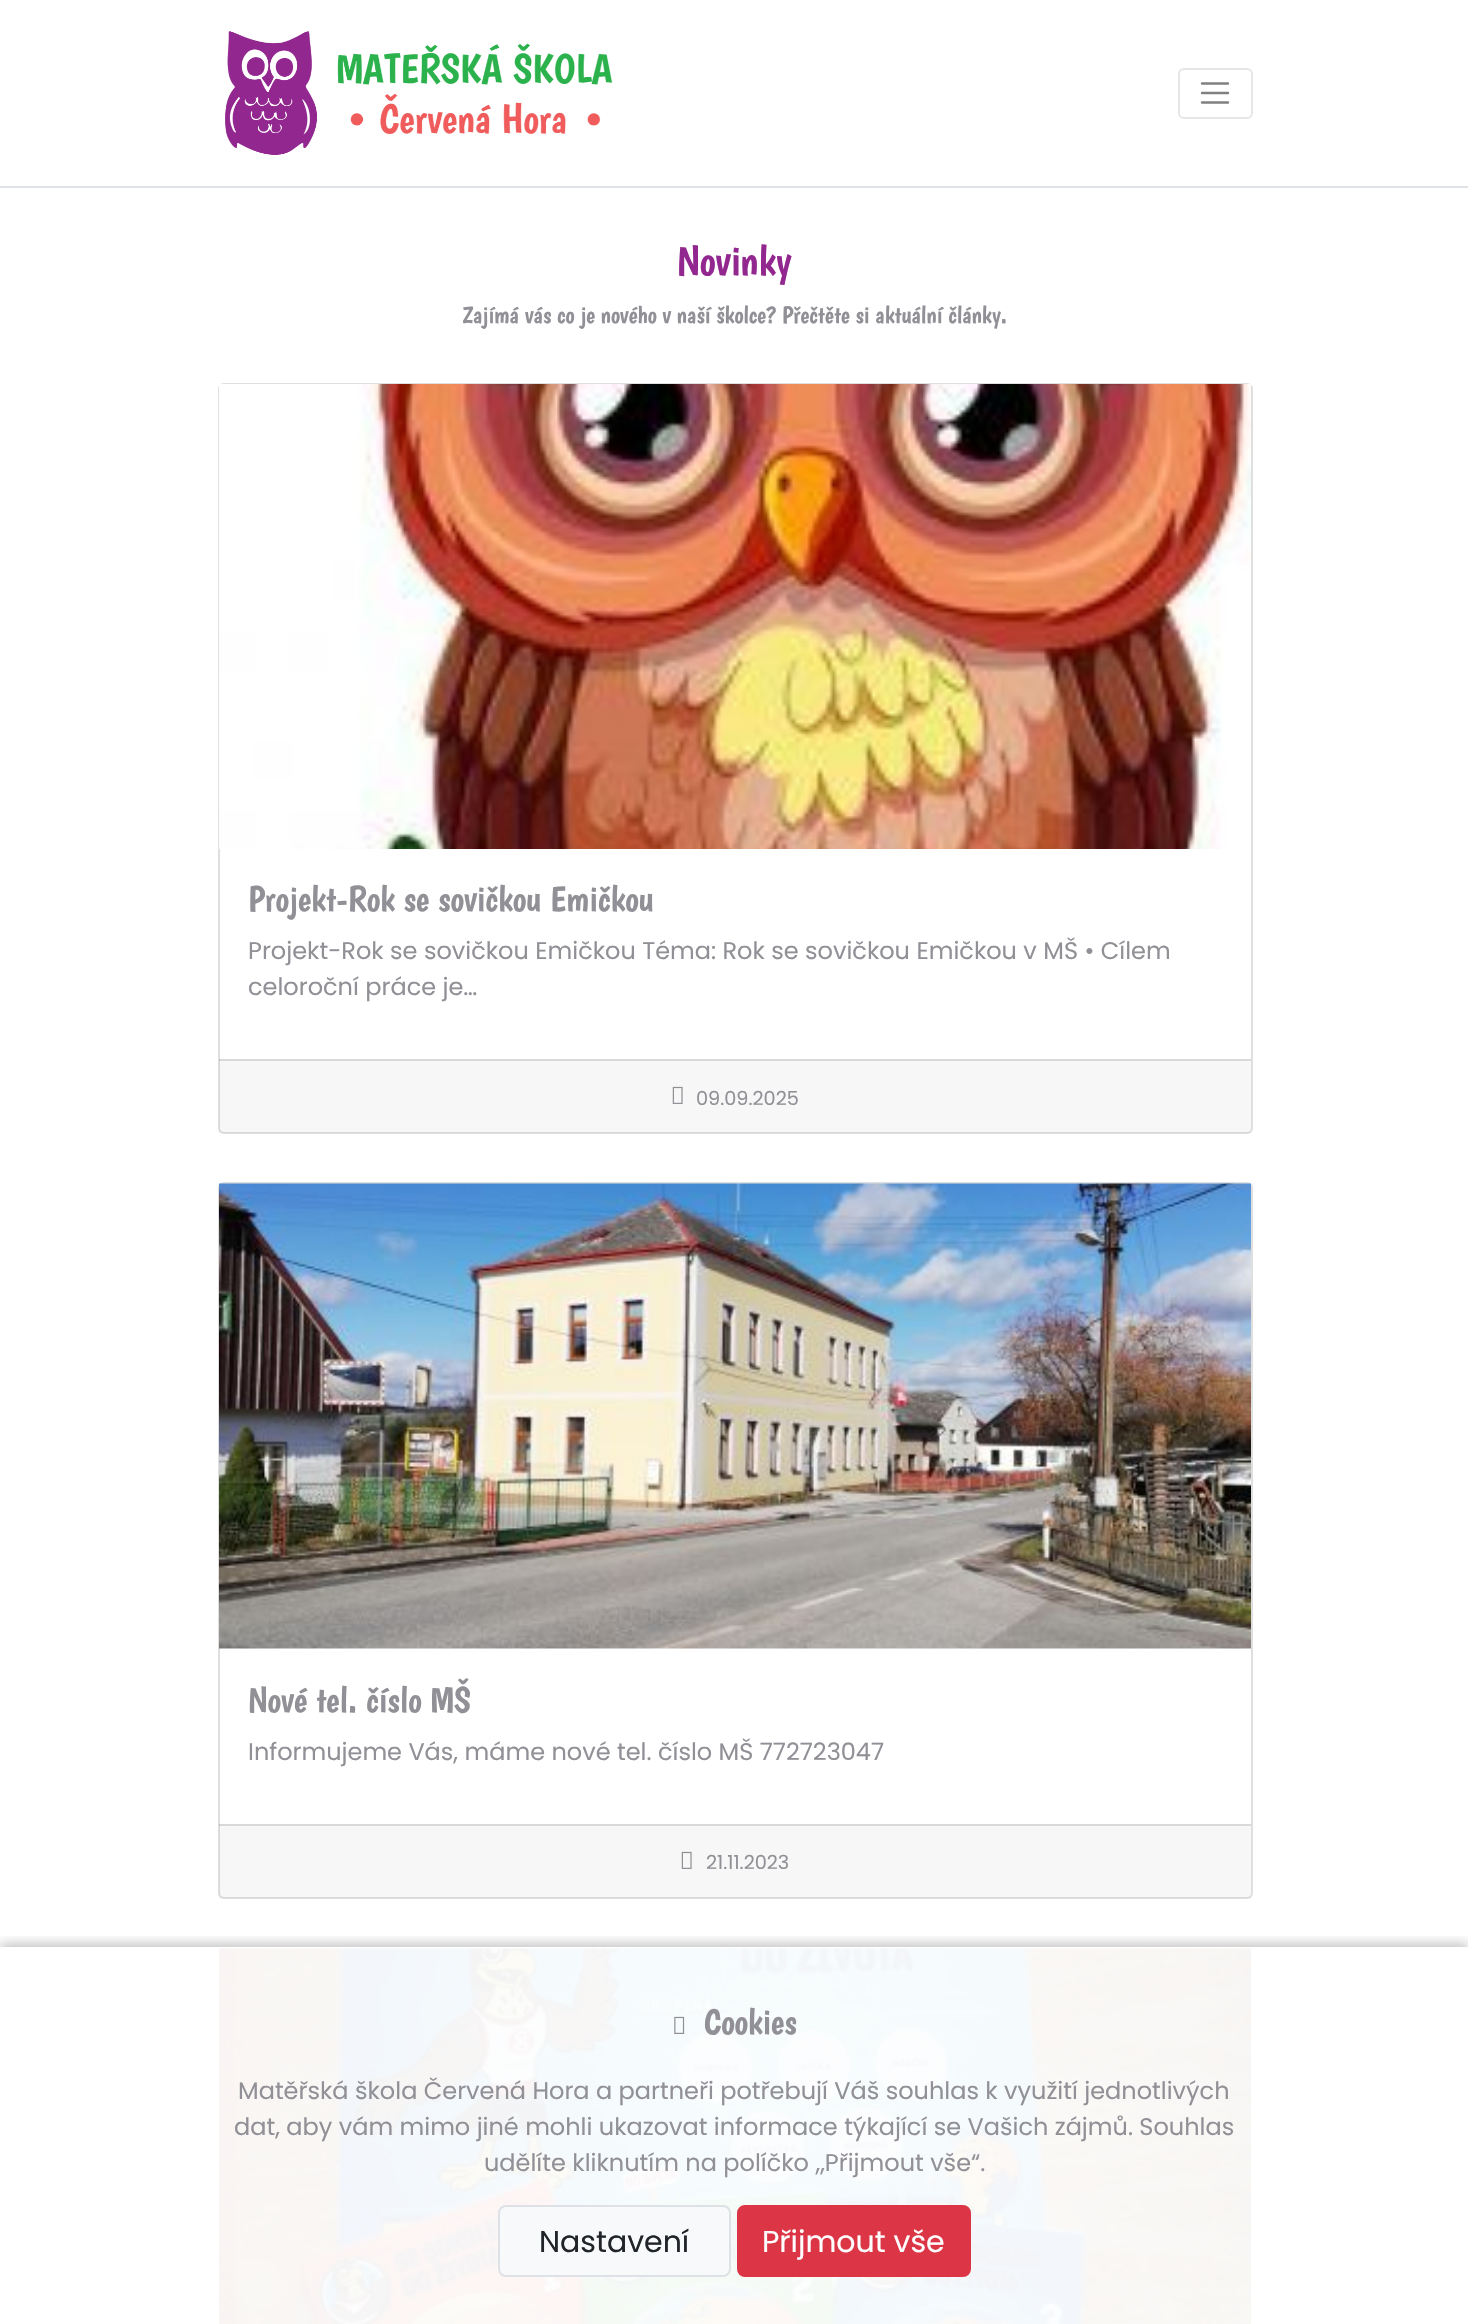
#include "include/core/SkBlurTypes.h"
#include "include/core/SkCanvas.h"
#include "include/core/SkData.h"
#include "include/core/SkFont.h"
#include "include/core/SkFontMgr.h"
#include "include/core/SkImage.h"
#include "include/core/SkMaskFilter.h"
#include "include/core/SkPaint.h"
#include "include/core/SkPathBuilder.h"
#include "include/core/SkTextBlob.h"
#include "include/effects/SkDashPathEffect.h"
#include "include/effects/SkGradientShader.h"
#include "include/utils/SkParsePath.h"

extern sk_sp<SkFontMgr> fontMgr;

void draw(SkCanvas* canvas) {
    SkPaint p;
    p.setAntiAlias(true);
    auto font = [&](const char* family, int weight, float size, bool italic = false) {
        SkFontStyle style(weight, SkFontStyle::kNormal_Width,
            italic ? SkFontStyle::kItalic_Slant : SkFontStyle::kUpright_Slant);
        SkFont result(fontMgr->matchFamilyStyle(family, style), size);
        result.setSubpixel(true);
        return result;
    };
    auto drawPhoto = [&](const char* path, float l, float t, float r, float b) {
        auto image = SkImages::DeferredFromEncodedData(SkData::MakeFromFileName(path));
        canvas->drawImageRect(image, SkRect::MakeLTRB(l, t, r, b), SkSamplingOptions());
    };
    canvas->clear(0xFFFFFFFF);
    p.setColor(0xFFDEE2E6);
    canvas->drawRect(SkRect::MakeLTRB(0, 186, 1468, 188), p);
    drawPhoto("media/1.png", 225, 31, 613, 155);
    p.setStyle(SkPaint::kStroke_Style);
    p.setStrokeWidth(2);
    p.setColor(0xFFE6E6E6);
    canvas->drawRoundRect(SkRect::MakeLTRB(1179, 69, 1252, 118), 5, 5, p);
    p.setStrokeWidth(2.4f);
    p.setStrokeCap(SkPaint::kRound_Cap);
    p.setColor(0xFF808080);
    canvas->drawPath(SkPathBuilder().moveTo(1202, 83.5f).lineTo(1228, 83.5f).moveTo(1202, 93).lineTo(1228, 93).moveTo(1202, 102.5f).lineTo(1228, 102.5f).detach(), p);
    auto font1 = font("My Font", 400, 42);
    p.setStyle(SkPaint::kFill_Style);
    p.setColor(0xFF92278F);
    canvas->drawString("Novinky", 677, 275, font1, p);
    auto font2 = font("My Font", 400, 24);
    p.setColor(0xFF919096);
    canvas->drawString("Zajímá vás co je nového v naší školce? Přečtěte si aktuální články.", 462, 323, font2, p);
    p.setStyle(SkPaint::kStroke_Style);
    p.setStrokeWidth(2);
    p.setStrokeCap(SkPaint::kButt_Cap);
    p.setColor(0xFFDFDFDF);
    canvas->drawRoundRect(SkRect::MakeLTRB(219, 384, 1252, 1133), 5, 5, p);
    drawPhoto("media/2.png", 219, 384, 1251, 849);
    auto font3 = font("My Font", 400, 36);
    p.setStyle(SkPaint::kFill_Style);
    p.setColor(0xFF919096);
    canvas->drawString("Projekt-Rok se sovičkou Emičkou", 248, 911, font3, p);
    auto font4 = font("Poppins", 400, 24);
    canvas->drawString("Projekt-Rok se sovičkou Emičkou Téma: Rok se sovičkou Emičkou v MŠ • Cílem", 248, 959, font4, p);
    canvas->drawString("celoroční práce je…", 248, 995, font4, p);
    p.setColor(0x08000000);
    canvas->drawRect(SkRect::MakeLTRB(219, 1059, 1251, 1133), p);
    p.setColor(0x1F000000);
    canvas->drawRect(SkRect::MakeLTRB(219, 1059, 1251, 1061), p);
    drawPhoto("media/3.png", 672, 1086, 683, 1104);
    auto font5 = font("Poppins", 400, 19.25f);
    p.setColor(0xFF919096);
    canvas->drawString("09.09.2025", 696, 1105, font5, p);
    p.setStyle(SkPaint::kStroke_Style);
    p.setColor(0xFFDFDFDF);
    canvas->drawRoundRect(SkRect::MakeLTRB(219, 1183, 1252, 1898), 5, 5, p);
    drawPhoto("media/4.png", 219, 1183, 1251, 1649);
    p.setStyle(SkPaint::kFill_Style);
    p.setColor(0xFF919096);
    canvas->drawString("Nové tel. číslo MŠ", 248, 1712, font3, p);
    canvas->drawString("Informujeme Vás, máme nové tel. číslo MŠ 772723047", 248, 1760, font4, p);
    p.setColor(0x08000000);
    canvas->drawRect(SkRect::MakeLTRB(219, 1824, 1251, 1898), p);
    p.setColor(0x1F000000);
    canvas->drawRect(SkRect::MakeLTRB(219, 1824, 1251, 1826), p);
    drawPhoto("media/3.png", 681, 1851, 692, 1869);
    p.setColor(0xFF919096);
    canvas->drawString("21.11.2023", 706, 1869, font5, p);
    drawPhoto("media/5.png", 219, 1948, 1251, 2324);
    canvas->save();
    canvas->clipRect(SkRect::MakeLTRB(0, 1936, 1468, 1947));
    p.setColor(0x40000000);
    p.setMaskFilter(SkMaskFilter::MakeBlur(kNormal_SkBlurStyle, 6));
    canvas->drawRect(SkRect::MakeLTRB(0, 1944, 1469, 2322), p);
    p.setMaskFilter(nullptr);
    canvas->restore();
    drawPhoto("media/6.png", 674, 2016, 685, 2034);
    p.setColor(0xFF919096);
    canvas->drawString("Cookies", 704, 2034, font3, p);
    {
        const struct { const char* s; float x, y; } items[] = {
            {"Matěřská škola Červená Hora a partneři potřebují Váš souhlas k využití jednotlivých", 238, 2099},
            {"dat, aby vám mimo jiné mohli ukazovat informace týkající se Vašich zájmů. Souhlas", 234, 2135},
            {"udělíte kliknutím na políčko „Přijmout vše“.", 484, 2171},
        };
        for (auto [s, x, y] : items) {
            canvas->drawString(s, x, y, font4, p);
        }
    }
    p.setColor(0xFFF8F9FA);
    canvas->drawRoundRect(SkRect::MakeLTRB(499, 2206, 730, 2276), 7, 7, p);
    p.setStyle(SkPaint::kStroke_Style);
    p.setColor(0xFFDEE2E6);
    canvas->drawRoundRect(SkRect::MakeLTRB(499, 2206, 730, 2276), 7, 7, p);
    auto font6 = font("Poppins", 400, 30);
    p.setStyle(SkPaint::kFill_Style);
    p.setColor(0xFF212529);
    canvas->drawString("Nastavení", 539, 2252, font6, p);
    p.setColor(0xFFDC3545);
    canvas->drawRoundRect(SkRect::MakeLTRB(738, 2206, 970, 2276), 7, 7, p);
    p.setStyle(SkPaint::kStroke_Style);
    canvas->drawRoundRect(SkRect::MakeLTRB(738, 2206, 970, 2276), 7, 7, p);
    p.setStyle(SkPaint::kFill_Style);
    p.setColor(0xFFFFFFFF);
    canvas->drawString("Přijmout vše", 762, 2252, font6, p);
}
